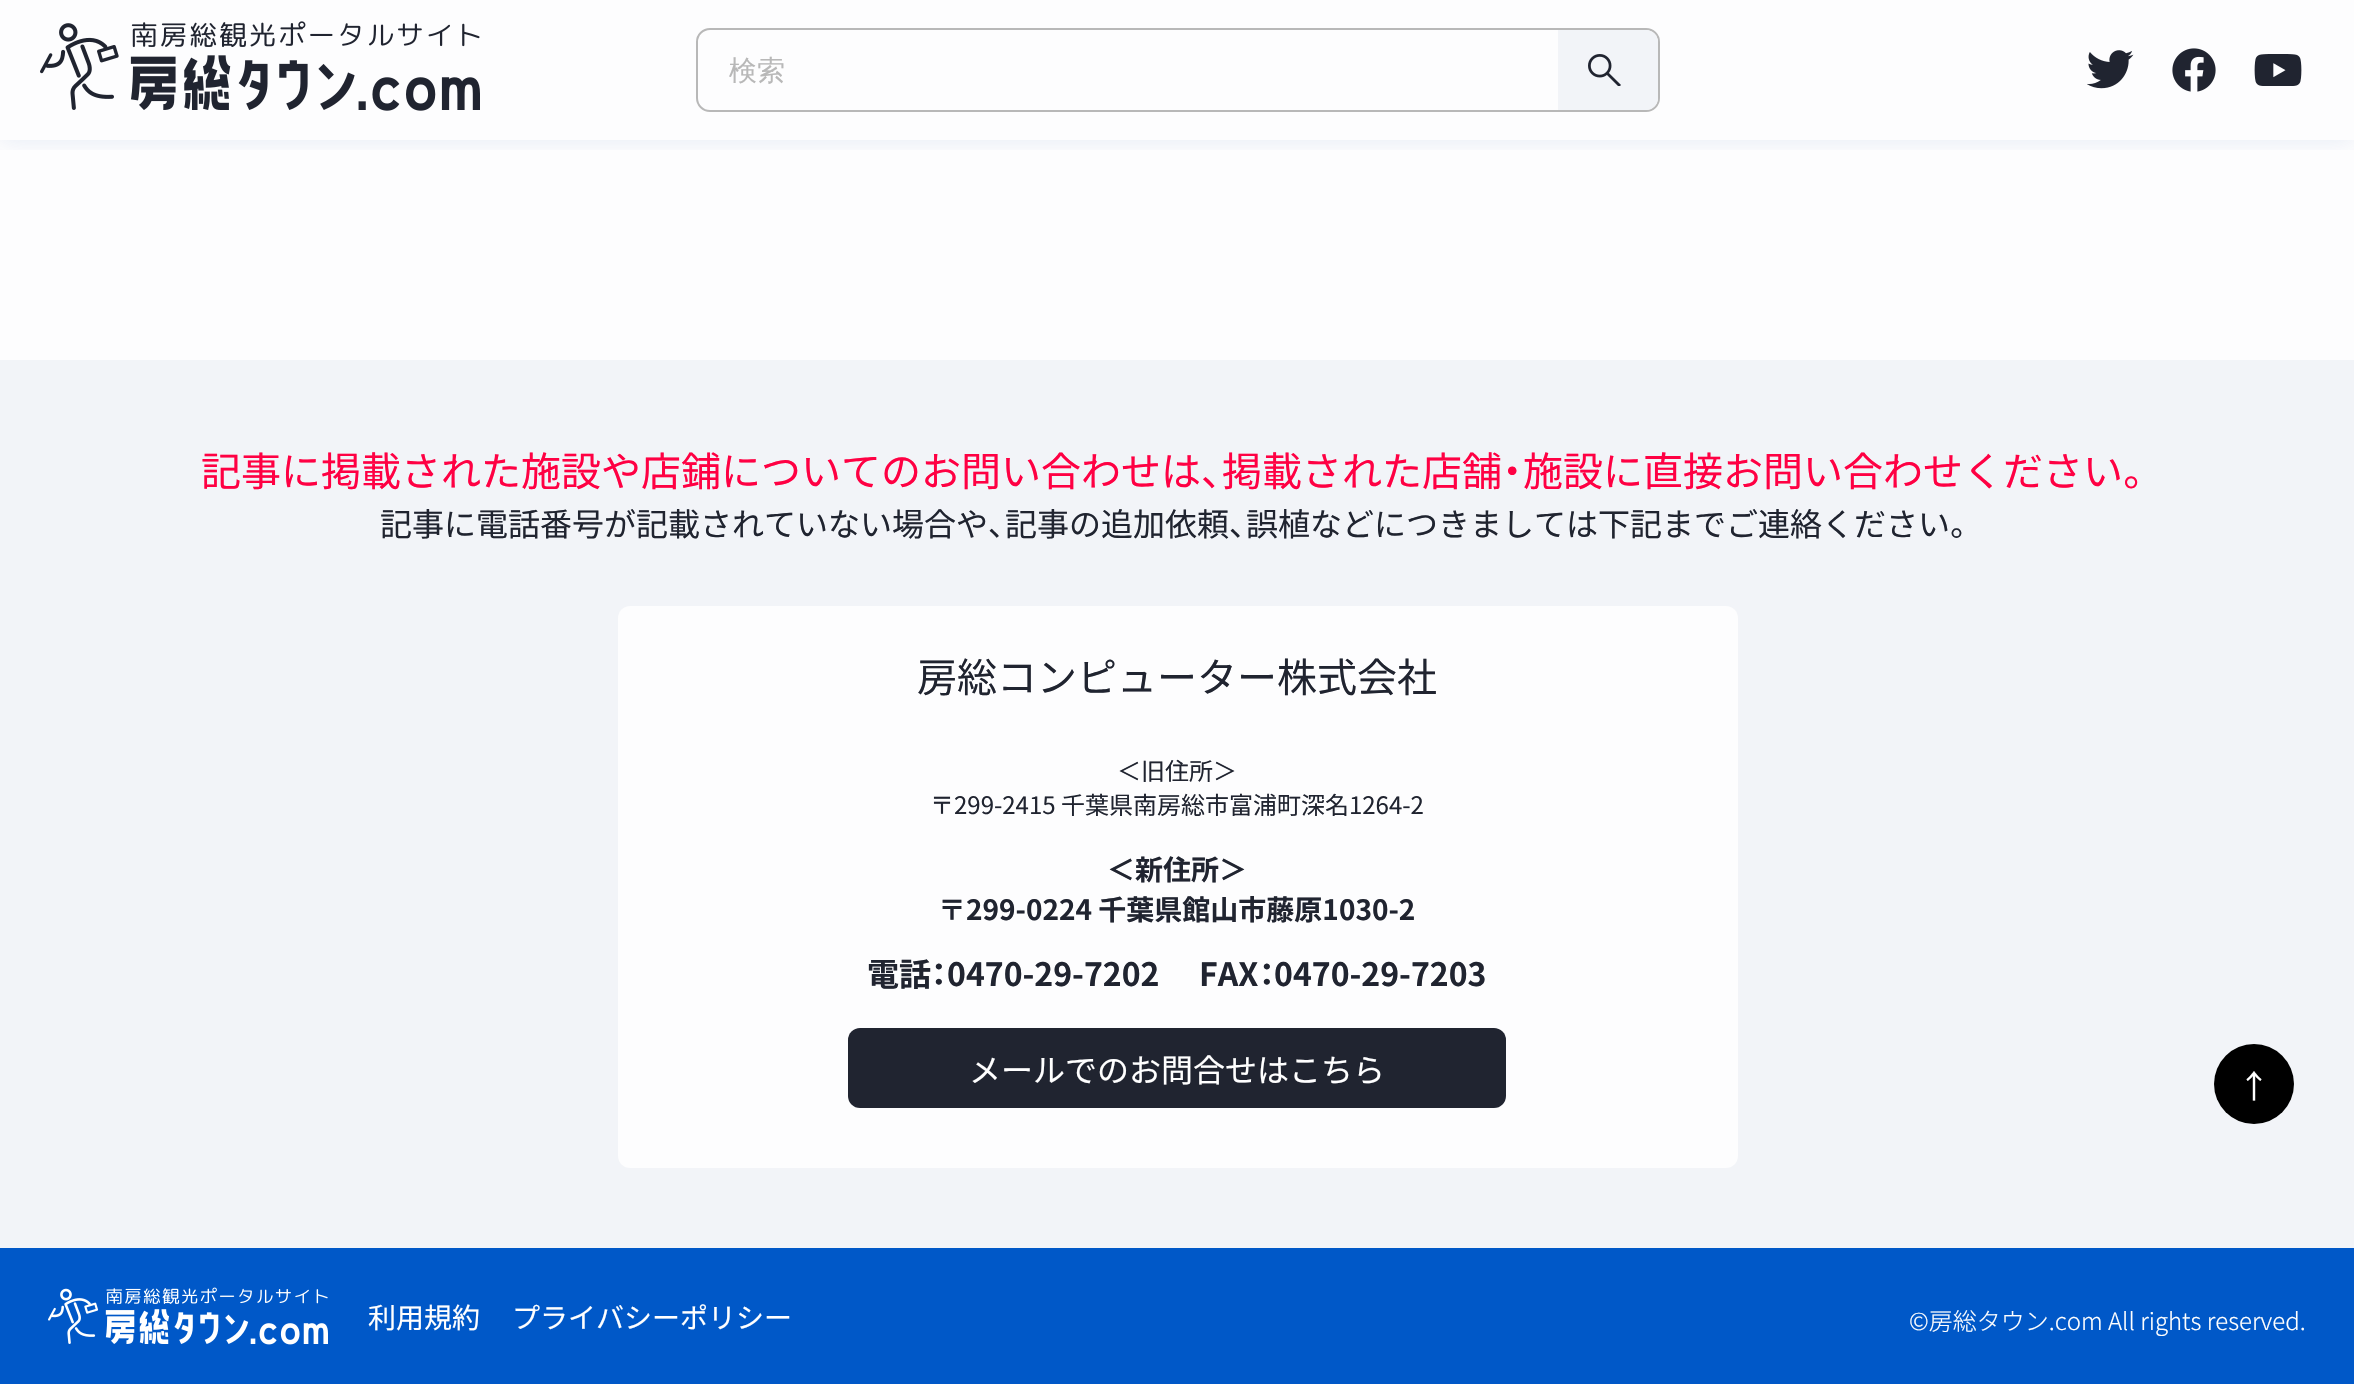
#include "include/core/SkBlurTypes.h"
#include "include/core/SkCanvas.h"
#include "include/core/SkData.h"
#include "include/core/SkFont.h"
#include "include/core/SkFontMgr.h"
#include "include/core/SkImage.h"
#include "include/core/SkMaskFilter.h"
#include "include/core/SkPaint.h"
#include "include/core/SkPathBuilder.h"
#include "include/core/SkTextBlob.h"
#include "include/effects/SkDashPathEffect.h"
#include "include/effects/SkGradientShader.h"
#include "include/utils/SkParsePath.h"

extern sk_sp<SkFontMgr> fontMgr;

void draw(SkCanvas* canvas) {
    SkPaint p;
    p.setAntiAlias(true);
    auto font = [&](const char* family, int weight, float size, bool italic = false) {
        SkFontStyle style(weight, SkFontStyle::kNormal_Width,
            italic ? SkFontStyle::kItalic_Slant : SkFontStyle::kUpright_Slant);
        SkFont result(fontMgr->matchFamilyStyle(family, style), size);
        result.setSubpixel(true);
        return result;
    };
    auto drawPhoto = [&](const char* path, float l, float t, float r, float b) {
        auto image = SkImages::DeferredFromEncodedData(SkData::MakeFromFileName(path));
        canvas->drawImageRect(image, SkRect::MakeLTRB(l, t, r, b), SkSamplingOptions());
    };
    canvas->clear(0xFFFDFDFE);
    canvas->save();
    canvas->clipRect(SkRect::MakeLTRB(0, 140, 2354, 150));
    p.setColor(0x1A0A449B);
    p.setMaskFilter(SkMaskFilter::MakeBlur(kNormal_SkBlurStyle, 12));
    canvas->drawRect(SkRect::MakeLTRB(0, 0, 2354, 140), p);
    p.setMaskFilter(nullptr);
    canvas->restore();
    drawPhoto("media/1.png", 40, 21, 480, 111);
    p.setStyle(SkPaint::kStroke_Style);
    p.setStrokeWidth(2);
    p.setColor(0xFFB8B8B8);
    canvas->drawRoundRect(SkRect::MakeLTRB(697, 29, 1659, 111), 13, 13, p);
    auto font1 = font("WenQuanYi Zen Hei", 500, 28);
    p.setStyle(SkPaint::kFill_Style);
    canvas->drawString("検索", 729, 80, font1, p);
    p.setColor(0xFFF2F4F8);
    canvas->drawPath(SkPathBuilder().moveTo(1558, 30).lineTo(1646, 30).cubicTo(1652.5f, 30, 1658, 35.5f, 1658, 42).lineTo(1658, 98).cubicTo(1658, 104.5f, 1652.5f, 110, 1646, 110).lineTo(1558, 110).close().detach(), p);
    drawPhoto("media/2.png", 1588, 54, 1621, 86);
    drawPhoto("media/3.png", 2087, 50, 2134, 89);
    drawPhoto("media/4.png", 2172, 48, 2216, 92);
    drawPhoto("media/5.png", 2254, 54, 2302, 86);
    canvas->drawRect(SkRect::MakeLTRB(0, 360, 2354, 1248), p);
    auto font2 = font("Noto Sans JP", 400, 40);
    p.setColor(0xFFFF0043);
    canvas->drawString("記事に掲載された施設や店鋪についてのお問い合わせは", 201, 486, font2, p);
    canvas->drawString("掲載された店舗", 1222, 486, font2, p);
    auto font3 = font("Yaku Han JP", 400, 40);
    canvas->drawString("・", 1502, 486, font3, p);
    canvas->drawString("施設に直接お問い合わせください", 1523, 486, font2, p);
    canvas->drawString("、", 1201, 486, font3, p);
    canvas->drawString("。", 2123, 486, font3, p);
    auto font4 = font("Noto Sans JP", 400, 32);
    p.setColor(0xFF202430);
    canvas->drawString("記事に電話番号が記載されていない場合や", 380, 536, font4, p);
    auto font5 = font("Yaku Han JP", 400, 32);
    canvas->drawString("、", 988, 536, font5, p);
    canvas->drawString("記事の追加依頼", 1005, 536, font4, p);
    canvas->drawString("、", 1229, 536, font5, p);
    canvas->drawString("誤植などにつきましては下記までご連絡ください", 1246, 536, font4, p);
    canvas->drawString("。", 1950, 536, font5, p);
    p.setColor(0xFFFDFDFE);
    canvas->drawRoundRect(SkRect::MakeLTRB(618, 606, 1738, 1168), 12, 12, p);
    p.setColor(0xFF202430);
    canvas->drawString("房総コンピューター株式会社", 917, 692, font2, p);
    auto font6 = font("Noto Sans JP", 400, 24);
    canvas->drawString("＜旧住所＞", 1117, 780, font6, p);
    canvas->drawString("〒299-2415 千葉県南房総市富浦町深名1264-2", 930, 814, font6, p);
    auto font7 = font("Noto Sans JP", 700, 28);
    canvas->drawString("＜新住所＞", 1107, 880, font7, p);
    canvas->drawString("〒299-0224 千葉県館山市藤原1030-2", 938, 920, font7, p);
    auto font8 = font("Noto Sans JP", 700, 32);
    canvas->drawString("電話", 867, 986, font8, p);
    auto font9 = font("Yaku Han JP", 700, 32);
    canvas->drawString("：", 931, 986, font9, p);
    canvas->drawString("0470-29-7202", 947, 986, font8, p);
    canvas->drawString("FAX", 1199, 986, font8, p);
    canvas->drawString("：", 1259, 986, font9, p);
    canvas->drawString("0470-29-7203", 1274, 986, font8, p);
    canvas->drawRoundRect(SkRect::MakeLTRB(848, 1028, 1506, 1108), 12, 12, p);
    p.setColor(0xFFFFFFFF);
    canvas->drawString("メールでのお問合せはこちら", 969, 1082, font4, p);
    p.setColor(0xFF0058C8);
    canvas->drawRect(SkRect::MakeLTRB(0, 1248, 2354, 1384), p);
    drawPhoto("media/6.png", 48, 1287, 328, 1345);
    auto font10 = font("Noto Sans JP", 400, 28);
    p.setColor(0xFFFFFFFF);
    canvas->drawString("利用規約", 368, 1328, font10, p);
    canvas->drawString("プライバシーポリシー", 512, 1328, font10, p);
    auto font11 = font("Noto Sans JP", 300, 24);
    canvas->drawString("©房総タウン.com All rights reserved.", 1909, 1330, font11, p);
    p.setColor(0xFF000000);
    canvas->drawCircle(2254, 1084, 40, p);
    p.setColor(0xFFFFFFFF);
    canvas->drawString("↑", 2238, 1098, font4, p);
}
